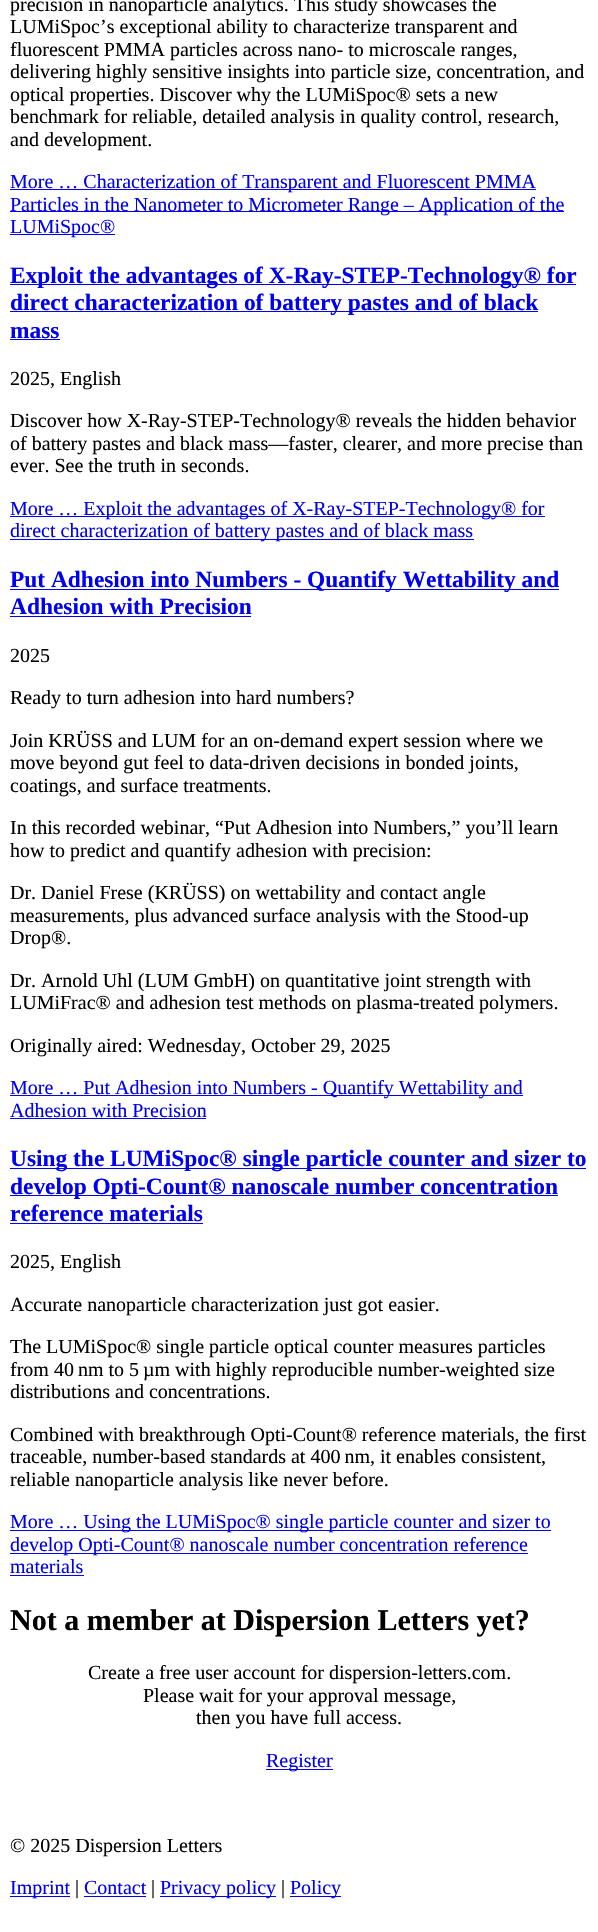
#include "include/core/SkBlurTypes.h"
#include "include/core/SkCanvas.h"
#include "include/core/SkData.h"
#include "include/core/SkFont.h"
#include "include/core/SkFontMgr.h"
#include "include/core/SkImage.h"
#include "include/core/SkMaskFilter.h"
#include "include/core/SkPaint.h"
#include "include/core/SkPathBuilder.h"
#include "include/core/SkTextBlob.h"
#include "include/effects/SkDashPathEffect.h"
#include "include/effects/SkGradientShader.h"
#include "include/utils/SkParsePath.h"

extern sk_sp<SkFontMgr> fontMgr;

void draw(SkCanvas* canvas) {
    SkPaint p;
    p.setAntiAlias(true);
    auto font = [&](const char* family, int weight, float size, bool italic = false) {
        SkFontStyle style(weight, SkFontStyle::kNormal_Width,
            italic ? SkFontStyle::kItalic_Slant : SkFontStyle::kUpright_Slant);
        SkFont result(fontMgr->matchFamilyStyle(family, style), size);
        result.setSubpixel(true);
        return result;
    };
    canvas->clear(0xFFFFFFFF);
    auto font1 = font("Liberation Serif", 400, 20);
    p.setColor(0xFF000000);
    {
        const struct { const char* s; float x, y; } items[] = {
            {"precision in nanoparticle analytics. This study showcases the", 10, 11},
            {"LUMiSpoc’s exceptional ability to characterize transparent and", 10, 33},
            {"fluorescent PMMA particles across nano- to microscale ranges,", 10, 56},
            {"delivering highly sensitive insights into particle size, concentration, and", 10, 78},
            {"optical properties. Discover why the LUMiSpoc® sets a new", 10, 101},
            {"benchmark for reliable, detailed analysis in quality control, research,", 10, 123},
            {"and development.", 10, 146},
        };
        for (auto [s, x, y] : items) {
            canvas->drawString(s, x, y, font1, p);
        }
    }
    p.setColor(0xFF0000EE);
    canvas->drawRect(SkRect::MakeLTRB(10, 189, 536, 190), p);
    canvas->drawString("More … Characterization of Transparent and Fluorescent PMMA", 10, 188, font1, p);
    canvas->drawRect(SkRect::MakeLTRB(10, 211, 564, 212), p);
    canvas->drawString("Particles in the Nanometer to Micrometer Range – Application of the", 10, 211, font1, p);
    canvas->drawRect(SkRect::MakeLTRB(10, 234, 115, 235), p);
    canvas->drawString("LUMiSpoc®", 10, 233, font1, p);
    canvas->drawRect(SkRect::MakeLTRB(10, 284, 576, 285), p);
    auto font2 = font("Liberation Serif", 700, 23.4f);
    canvas->drawString("Exploit the advantages of X-Ray-STEP-Technology® for", 10, 283, font2, p);
    canvas->drawRect(SkRect::MakeLTRB(10, 311, 538, 312), p);
    canvas->drawString("direct characterization of battery pastes and of black", 10, 310, font2, p);
    canvas->drawString("mass", 10, 338, font2, p);
    canvas->drawRect(SkRect::MakeLTRB(10, 339, 60, 340), p);
    p.setColor(0xFF000000);
    {
        const struct { const char* s; float x, y; } items[] = {
            {"2025, English", 10, 385},
            {"Discover how X-Ray-STEP-Technology® reveals the hidden behavior", 10, 427},
            {"of battery pastes and black mass—faster, clearer, and more precise than", 10, 450},
            {"ever. See the truth in seconds.", 10, 472},
        };
        for (auto [s, x, y] : items) {
            canvas->drawString(s, x, y, font1, p);
        }
    }
    p.setColor(0xFF0000EE);
    canvas->drawRect(SkRect::MakeLTRB(10, 516, 545, 517), p);
    canvas->drawString("More … Exploit the advantages of X-Ray-STEP-Technology® for", 10, 515, font1, p);
    canvas->drawRect(SkRect::MakeLTRB(10, 539, 474, 540), p);
    canvas->drawString("direct characterization of battery pastes and of black mass", 10, 537, font1, p);
    canvas->drawRect(SkRect::MakeLTRB(10, 589, 559, 590), p);
    canvas->drawString("Put Adhesion into Numbers - Quantify Wettability and", 10, 587, font2, p);
    canvas->drawString("Adhesion with Precision", 10, 614, font2, p);
    canvas->drawRect(SkRect::MakeLTRB(10, 616, 251, 617), p);
    p.setColor(0xFF000000);
    {
        const struct { const char* s; float x, y; } items[] = {
            {"2025", 10, 662},
            {"Ready to turn adhesion into hard numbers?", 10, 704},
            {"Join KRÜSS and LUM for an on-demand expert session where we", 10, 747},
            {"move beyond gut feel to data-driven decisions in bonded joints,", 10, 769},
            {"coatings, and surface treatments.", 10, 792},
            {"In this recorded webinar, “Put Adhesion into Numbers,” you’ll learn", 10, 834},
            {"how to predict and quantify adhesion with precision:", 10, 857},
            {"Dr. Daniel Frese (KRÜSS) on wettability and contact angle", 10, 899},
            {"measurements, plus advanced surface analysis with the Stood-up", 10, 922},
            {"Drop®.", 10, 944},
            {"Dr. Arnold Uhl (LUM GmbH) on quantitative joint strength with", 10, 987},
            {"LUMiFrac® and adhesion test methods on plasma-treated polymers.", 10, 1009},
            {"Originally aired: Wednesday, October 29, 2025", 10, 1052},
        };
        for (auto [s, x, y] : items) {
            canvas->drawString(s, x, y, font1, p);
        }
    }
    p.setColor(0xFF0000EE);
    canvas->drawRect(SkRect::MakeLTRB(10, 1095, 523, 1096), p);
    canvas->drawString("More … Put Adhesion into Numbers - Quantify Wettability and", 10, 1094, font1, p);
    canvas->drawString("Adhesion with Precision", 10, 1117, font1, p);
    canvas->drawRect(SkRect::MakeLTRB(10, 1118, 206, 1119), p);
    canvas->drawRect(SkRect::MakeLTRB(10, 1168, 586, 1169), p);
    canvas->drawString("Using the LUMiSpoc® single particle counter and sizer to", 10, 1166, font2, p);
    canvas->drawRect(SkRect::MakeLTRB(10, 1195, 558, 1196), p);
    canvas->drawString("develop Opti-Count® nanoscale number concentration", 10, 1194, font2, p);
    canvas->drawString("reference materials", 10, 1221, font2, p);
    canvas->drawRect(SkRect::MakeLTRB(10, 1223, 203, 1224), p);
    p.setColor(0xFF000000);
    {
        const struct { const char* s; float x, y; } items[] = {
            {"2025, English", 10, 1268},
            {"Accurate nanoparticle characterization just got easier.", 10, 1311},
            {"The LUMiSpoc® single particle optical counter measures particles", 10, 1353},
            {"from 40 nm to 5 µm with highly reproducible number-weighted size", 10, 1376},
            {"distributions and concentrations.", 10, 1398},
            {"Combined with breakthrough Opti-Count® reference materials, the first", 10, 1441},
            {"traceable, number-based standards at 400 nm, it enables consistent,", 10, 1463},
            {"reliable nanoparticle analysis like never before.", 10, 1486},
        };
        for (auto [s, x, y] : items) {
            canvas->drawString(s, x, y, font1, p);
        }
    }
    p.setColor(0xFF0000EE);
    canvas->drawRect(SkRect::MakeLTRB(10, 1530, 551, 1531), p);
    canvas->drawString("More … Using the LUMiSpoc® single particle counter and sizer to", 10, 1528, font1, p);
    canvas->drawRect(SkRect::MakeLTRB(10, 1553, 528, 1554), p);
    canvas->drawString("develop Opti-Count® nanoscale number concentration reference", 10, 1551, font1, p);
    canvas->drawString("materials", 10, 1573, font1, p);
    canvas->drawRect(SkRect::MakeLTRB(10, 1575, 84, 1576), p);
    auto font3 = font("Liberation Serif", 700, 30);
    p.setColor(0xFF000000);
    canvas->drawString("Not a member at Dispersion Letters yet?", 10, 1630, font3, p);
    {
        const struct { const char* s; float x, y; } items[] = {
            {"Create a free user account for dispersion-letters.com.", 88, 1679},
            {"Please wait for your approval message,", 143, 1702},
            {"then you have full access.", 196, 1724},
        };
        for (auto [s, x, y] : items) {
            canvas->drawString(s, x, y, font1, p);
        }
    }
    p.setColor(0xFF0000EE);
    canvas->drawRect(SkRect::MakeLTRB(266, 1769, 333, 1770), p);
    canvas->drawString("Register", 266, 1767, font1, p);
    p.setColor(0xFF000000);
    canvas->drawString("© 2025 Dispersion Letters", 10, 1852, font1, p);
    p.setColor(0xFF0000EE);
    canvas->drawRect(SkRect::MakeLTRB(10, 1896, 70, 1897), p);
    canvas->drawString("Imprint", 10, 1894, font1, p);
    p.setColor(0xFF000000);
    canvas->drawString("|", 75, 1894, font1, p);
    p.setColor(0xFF0000EE);
    canvas->drawString("Contact", 84, 1894, font1, p);
    canvas->drawRect(SkRect::MakeLTRB(84, 1896, 146, 1897), p);
    p.setColor(0xFF000000);
    canvas->drawString("|", 151, 1894, font1, p);
    p.setColor(0xFF0000EE);
    canvas->drawRect(SkRect::MakeLTRB(160, 1896, 276, 1897), p);
    canvas->drawString("Privacy policy", 160, 1894, font1, p);
    p.setColor(0xFF000000);
    canvas->drawString("|", 281, 1894, font1, p);
    p.setColor(0xFF0000EE);
    canvas->drawRect(SkRect::MakeLTRB(290, 1896, 341, 1897), p);
    canvas->drawString("Policy", 290, 1894, font1, p);
}
